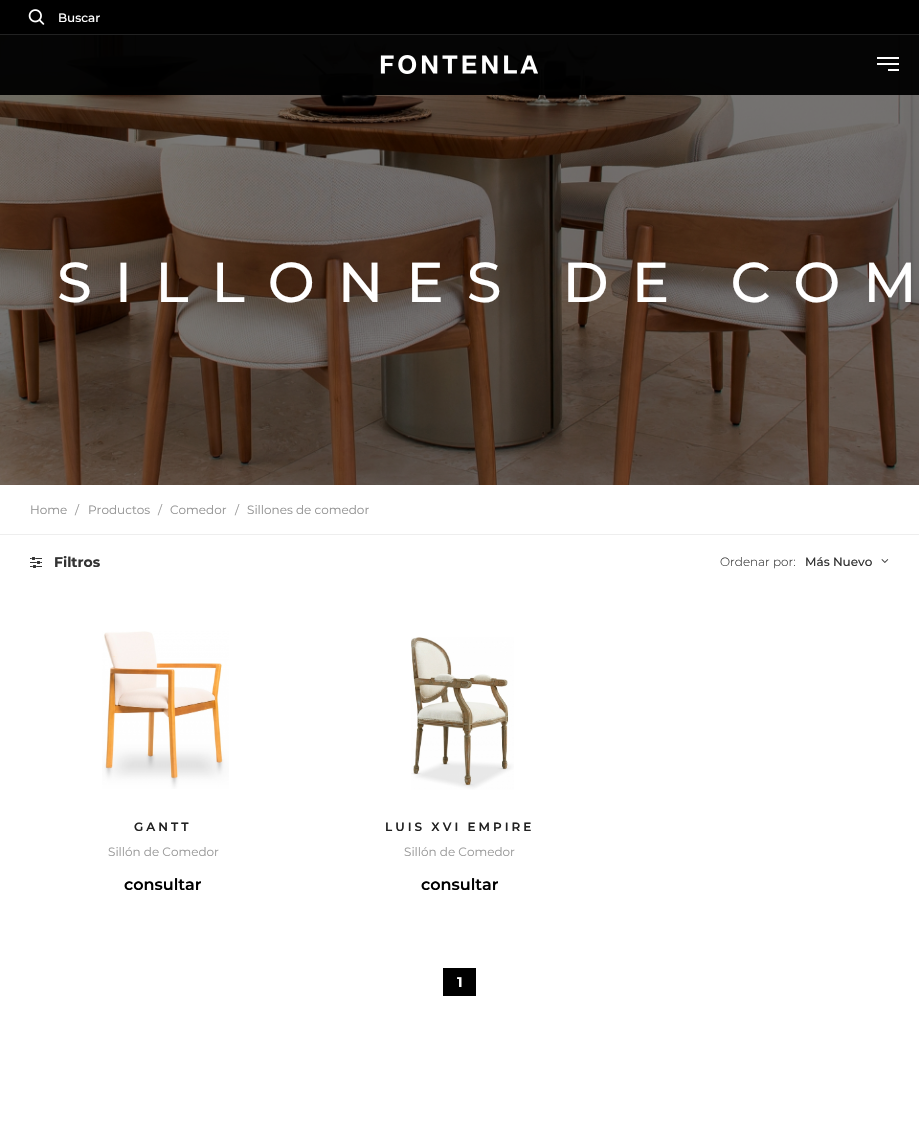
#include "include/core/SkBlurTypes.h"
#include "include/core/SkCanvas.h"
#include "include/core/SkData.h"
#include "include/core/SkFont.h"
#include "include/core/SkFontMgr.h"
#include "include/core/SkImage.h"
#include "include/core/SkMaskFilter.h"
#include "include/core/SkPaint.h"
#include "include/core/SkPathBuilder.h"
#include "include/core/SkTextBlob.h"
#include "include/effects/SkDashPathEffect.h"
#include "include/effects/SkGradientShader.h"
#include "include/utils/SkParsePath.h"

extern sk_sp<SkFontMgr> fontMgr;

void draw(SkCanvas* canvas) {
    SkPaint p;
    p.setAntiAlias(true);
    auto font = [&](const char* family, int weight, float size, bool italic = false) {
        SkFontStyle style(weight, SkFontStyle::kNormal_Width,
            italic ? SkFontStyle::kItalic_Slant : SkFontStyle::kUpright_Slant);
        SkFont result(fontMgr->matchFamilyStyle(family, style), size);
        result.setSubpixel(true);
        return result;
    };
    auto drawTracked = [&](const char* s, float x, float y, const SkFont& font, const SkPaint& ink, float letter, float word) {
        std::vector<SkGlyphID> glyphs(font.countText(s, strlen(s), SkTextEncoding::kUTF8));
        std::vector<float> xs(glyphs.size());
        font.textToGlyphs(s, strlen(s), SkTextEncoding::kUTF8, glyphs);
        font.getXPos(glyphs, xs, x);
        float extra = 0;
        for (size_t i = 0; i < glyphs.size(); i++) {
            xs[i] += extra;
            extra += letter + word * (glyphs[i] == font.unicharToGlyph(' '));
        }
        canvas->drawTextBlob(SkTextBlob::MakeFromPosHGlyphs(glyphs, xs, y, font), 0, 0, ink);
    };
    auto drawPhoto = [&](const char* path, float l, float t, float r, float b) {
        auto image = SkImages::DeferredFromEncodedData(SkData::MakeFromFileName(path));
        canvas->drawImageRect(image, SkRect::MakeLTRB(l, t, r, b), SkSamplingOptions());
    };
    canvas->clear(0xFFFFFFFF);
    drawPhoto("media/3.png", 0, 35, 919, 485);
    {
        const struct { float l, t, r, b; SkColor color; } items[] = {
            {0, 35, 919, 95, 0xFA000000},
            {0, 0, 919, 34, 0xFF000000},
            {0, 34, 919, 35, 0xFF222222},
        };
        for (auto [l, t, r, b, color] : items) {
            p.setColor(color);
            canvas->drawRect(SkRect::MakeLTRB(l, t, r, b), p);
        }
    }
    drawPhoto("media/1.png", 28, 9, 45, 25);
    auto font1 = font("Montserrat", 500, 12);
    p.setColor(0xFFFFFFFF);
    canvas->drawString("Buscar", 58, 22, font1, p);
    drawPhoto("media/2.png", 380, 55, 538, 74);
    {
        const struct { float l, t, r, b; SkColor color; } items[] = {
            {877, 57, 899, 59, 0xFFFFFFFF},
            {877, 63, 899, 65, 0xFFFFFFFF},
            {888, 69, 899, 71, 0xFFFFFFFF},
            {0, 95, 919, 485, 0x80000000},
        };
        for (auto [l, t, r, b, color] : items) {
            p.setColor(color);
            canvas->drawRect(SkRect::MakeLTRB(l, t, r, b), p);
        }
    }
    auto font2 = font("Montserrat", 500, 56);
    p.setColor(0xFFFFFFFF);
    drawTracked("SILLONES DE COM", 57, 302, font2, p, 23, 0);
    p.setColor(0xFFEEEEEE);
    canvas->drawRect(SkRect::MakeLTRB(0, 534, 919, 535), p);
    auto font3 = font("Montserrat", 400, 12);
    p.setColor(0xFF939393);
    canvas->drawString("Home", 30, 514, font3, p);
    p.setColor(0xFF999999);
    canvas->drawString("/", 75, 514, font3, p);
    p.setColor(0xFF939393);
    canvas->drawString("Productos", 88, 514, font3, p);
    p.setColor(0xFF999999);
    canvas->drawString("/", 158, 514, font3, p);
    p.setColor(0xFF939393);
    canvas->drawString("Comedor", 170, 514, font3, p);
    p.setColor(0xFF999999);
    canvas->drawString("/", 235, 514, font3, p);
    p.setColor(0xFF939393);
    canvas->drawString("Sillones de comedor", 247, 514, font3, p);
    drawPhoto("media/4.png", 30, 557, 42, 568);
    auto font4 = font("Montserrat", 700, 14);
    p.setColor(0xFF333333);
    canvas->drawString("Filtros", 54, 567, font4, p);
    auto font5 = font("Montserrat", 300, 12);
    canvas->drawString("Ordenar por:", 720, 566, font5, p);
    canvas->drawString("Más Nuevo", 805, 566, font1, p);
    drawPhoto("media/5.png", 881, 559, 889, 563);
    drawPhoto("media/6.png", 102, 631, 229, 789);
    auto font6 = font("Montserrat", 600, 12);
    p.setColor(0xFF222222);
    drawTracked("GANTT", 134, 831, font6, p, 3, 0);
    p.setColor(0xFF999999);
    canvas->drawString("Sillón de Comedor", 108, 856, font3, p);
    auto font7 = font("Montserrat", 600, 16);
    p.setColor(0xFF000000);
    canvas->drawString("consultar", 124, 890, font7, p);
    drawPhoto("media/7.png", 411, 637, 514, 790);
    p.setColor(0xFF222222);
    drawTracked("LUIS XVI EMPIRE", 385, 831, font6, p, 3, 0);
    p.setColor(0xFF999999);
    canvas->drawString("Sillón de Comedor", 404, 856, font3, p);
    p.setColor(0xFF000000);
    canvas->drawString("consultar", 421, 890, font7, p);
    canvas->drawRect(SkRect::MakeLTRB(443, 968, 476, 996), p);
    p.setColor(0xFFFFFFFF);
    canvas->drawString("1", 457, 987, font4, p);
}
